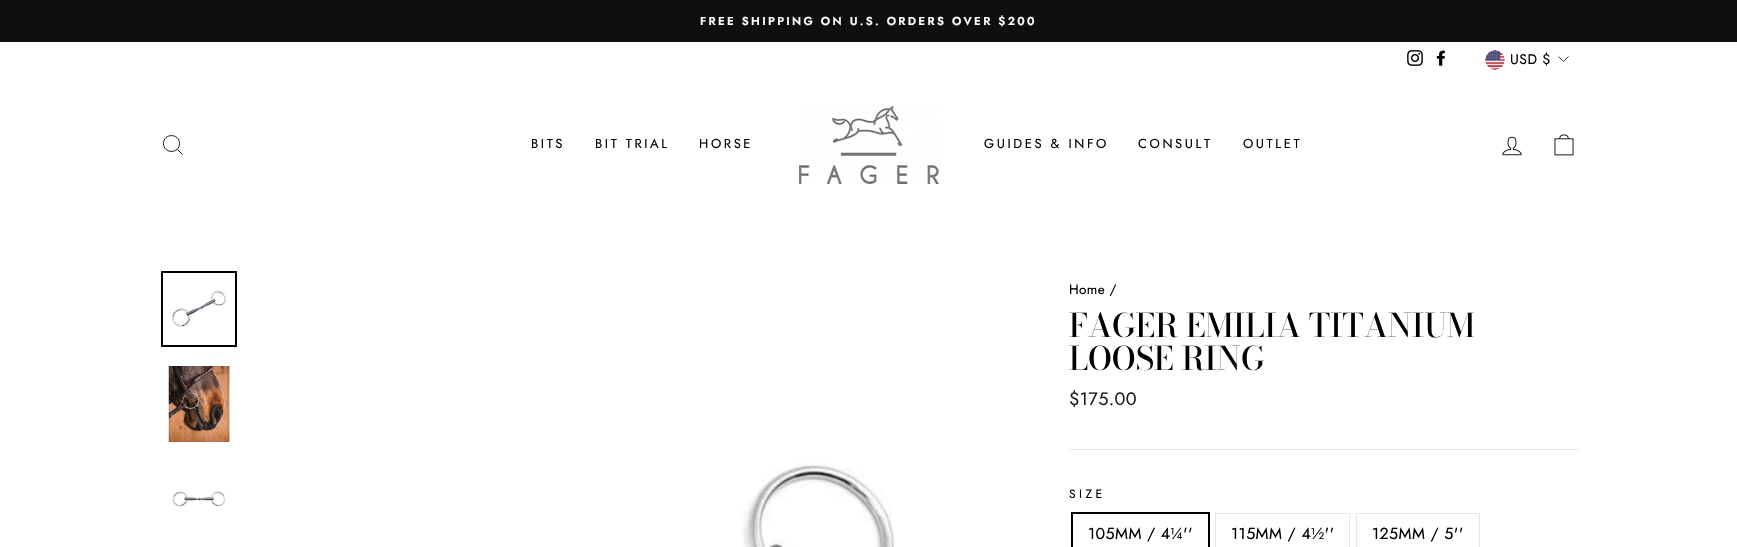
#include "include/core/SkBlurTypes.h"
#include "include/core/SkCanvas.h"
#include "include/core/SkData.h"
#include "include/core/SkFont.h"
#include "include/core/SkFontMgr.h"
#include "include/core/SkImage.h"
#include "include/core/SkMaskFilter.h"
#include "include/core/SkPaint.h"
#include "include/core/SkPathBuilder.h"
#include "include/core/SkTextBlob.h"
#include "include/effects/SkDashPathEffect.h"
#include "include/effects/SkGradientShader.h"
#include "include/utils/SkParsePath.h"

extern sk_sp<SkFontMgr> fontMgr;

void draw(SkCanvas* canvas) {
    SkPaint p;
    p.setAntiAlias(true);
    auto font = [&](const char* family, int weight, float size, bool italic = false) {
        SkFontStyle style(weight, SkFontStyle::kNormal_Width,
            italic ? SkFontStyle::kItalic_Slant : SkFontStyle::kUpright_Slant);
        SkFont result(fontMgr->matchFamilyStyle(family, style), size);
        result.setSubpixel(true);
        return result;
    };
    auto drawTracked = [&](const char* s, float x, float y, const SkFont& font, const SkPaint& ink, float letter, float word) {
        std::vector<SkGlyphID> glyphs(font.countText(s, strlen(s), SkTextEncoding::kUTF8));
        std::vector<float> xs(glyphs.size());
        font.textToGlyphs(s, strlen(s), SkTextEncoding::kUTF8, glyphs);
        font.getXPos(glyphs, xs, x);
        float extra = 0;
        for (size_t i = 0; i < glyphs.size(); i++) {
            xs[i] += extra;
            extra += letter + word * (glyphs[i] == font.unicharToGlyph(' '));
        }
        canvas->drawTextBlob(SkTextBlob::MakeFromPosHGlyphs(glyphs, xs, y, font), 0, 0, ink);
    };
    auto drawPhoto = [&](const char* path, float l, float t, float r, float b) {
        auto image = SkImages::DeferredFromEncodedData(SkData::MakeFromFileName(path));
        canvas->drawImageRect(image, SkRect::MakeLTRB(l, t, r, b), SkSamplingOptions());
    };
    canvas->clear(0xFFFFFFFF);
    p.setColor(0xFF0F0F0F);
    canvas->drawRect(SkRect::MakeLTRB(0, 0, 1737, 42), p);
    auto font1 = font("Jost", 600, 11.55f);
    p.setColor(0xFFFFFFFF);
    drawTracked("FREE SHIPPING ON U.S. ORDERS OVER $200", 700, 25, font1, p, 2.3f, 0);
    drawPhoto("media/1.png", 1407, 50, 1423, 66);
    drawPhoto("media/2.png", 1436, 50, 1445, 66);
    drawPhoto("media/3.png", 1485, 50, 1505, 70);
    auto font2 = font("Jost", 400, 14);
    p.setColor(0xFF000000);
    drawTracked("USD $", 1510, 64, font2, p, 0.5f, 0);
    p.setStyle(SkPaint::kStroke_Style);
    p.setStrokeWidth(0.8f);
    canvas->drawPath(SkPathBuilder().moveTo(1558.5f, 56.5f).lineTo(1563.5f, 61.5f).lineTo(1568.5f, 56.5f).detach(), p);
    p.setStrokeWidth(0.9f);
    canvas->drawPath(SkPathBuilder().moveTo(179.5f, 143.5f).cubicTo(179.5f, 154, 163.5f, 154, 163.5f, 143.5f).cubicTo(163.5f, 133, 179.5f, 133, 179.5f, 143.5f).close().moveTo(182.5f, 154.5f).lineTo(177.5f, 149.5f).detach(), p);
    auto font3 = font("Jost", 400, 13);
    p.setStyle(SkPaint::kFill_Style);
    {
        const struct { const char* s; float x, y; } items[] = {
            {"BITS", 531, 148},
            {"BIT TRIAL", 595, 148},
            {"HORSE", 699, 148},
        };
        for (auto [s, x, y] : items) {
            drawTracked(s, x, y, font3, p, 2.6f, 0);
        }
    }
    drawPhoto("media/4.png", 799, 106, 939, 184);
    {
        const struct { const char* s; float x, y; } items[] = {
            {"GUIDES & INFO", 984, 148},
            {"CONSULT", 1138, 148},
            {"OUTLET", 1243, 148},
        };
        for (auto [s, x, y] : items) {
            drawTracked(s, x, y, font3, p, 2.6f, 0);
        }
    }
    drawPhoto("media/5.png", 1502, 136, 1522, 156);
    drawPhoto("media/6.png", 1554, 134, 1574, 156);
    drawPhoto("media/7.png", 171, 291, 226, 327);
    p.setStyle(SkPaint::kStroke_Style);
    p.setStrokeWidth(2);
    canvas->drawRect(SkRect::MakeLTRB(162, 272, 236, 346), p);
    drawPhoto("media/8.png", 167, 366, 230, 442);
    drawPhoto("media/9.png", 172, 491, 226, 507);
    drawPhoto("media/10.png", 741, 460, 895, 547);
    auto font4 = font("Jost", 400, 13.5f);
    p.setStyle(SkPaint::kFill_Style);
    drawTracked("Home /", 1069, 294, font4, p, 0.4f, 0);
    auto font5 = font("Bodoni Moda", 500, 32.25f);
    canvas->drawString("FAGER EMILIA TITANIUM", 1069, 337, font5, p);
    canvas->drawString("LOOSE RING", 1069, 370, font5, p);
    auto font6 = font("Jost", 400, 18);
    p.setColor(0xFF1C1D1D);
    drawTracked("$175.00", 1069, 405, font6, p, 0.4f, 0);
    p.setColor(0xFFE8E8E1);
    canvas->drawRect(SkRect::MakeLTRB(1069, 449, 1578, 450), p);
    auto font7 = font("Jost", 400, 12);
    p.setColor(0xFF000000);
    drawTracked("SIZE", 1069, 498, font7, p, 3.5f, 0);
    p.setStyle(SkPaint::kStroke_Style);
    canvas->drawRect(SkRect::MakeLTRB(1072, 513, 1209, 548), p);
    auto font8 = font("Jost", 400, 16);
    p.setStyle(SkPaint::kFill_Style);
    drawTracked("105MM / 4¼''", 1088, 539, font8, p, 0.4f, 0);
    p.setStyle(SkPaint::kStroke_Style);
    p.setStrokeWidth(1);
    p.setColor(0xFFE8E8E1);
    canvas->drawRect(SkRect::MakeLTRB(1215.5f, 513.5f, 1349.5f, 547.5f), p);
    p.setStyle(SkPaint::kFill_Style);
    p.setColor(0xFF000000);
    drawTracked("115MM / 4½''", 1231, 539, font8, p, 0.4f, 0);
    p.setStyle(SkPaint::kStroke_Style);
    p.setColor(0xFFE8E8E1);
    canvas->drawRect(SkRect::MakeLTRB(1356.5f, 513.5f, 1479.5f, 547.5f), p);
    p.setStyle(SkPaint::kFill_Style);
    p.setColor(0xFF000000);
    drawTracked("125MM / 5''", 1372, 539, font8, p, 0.4f, 0);
}
